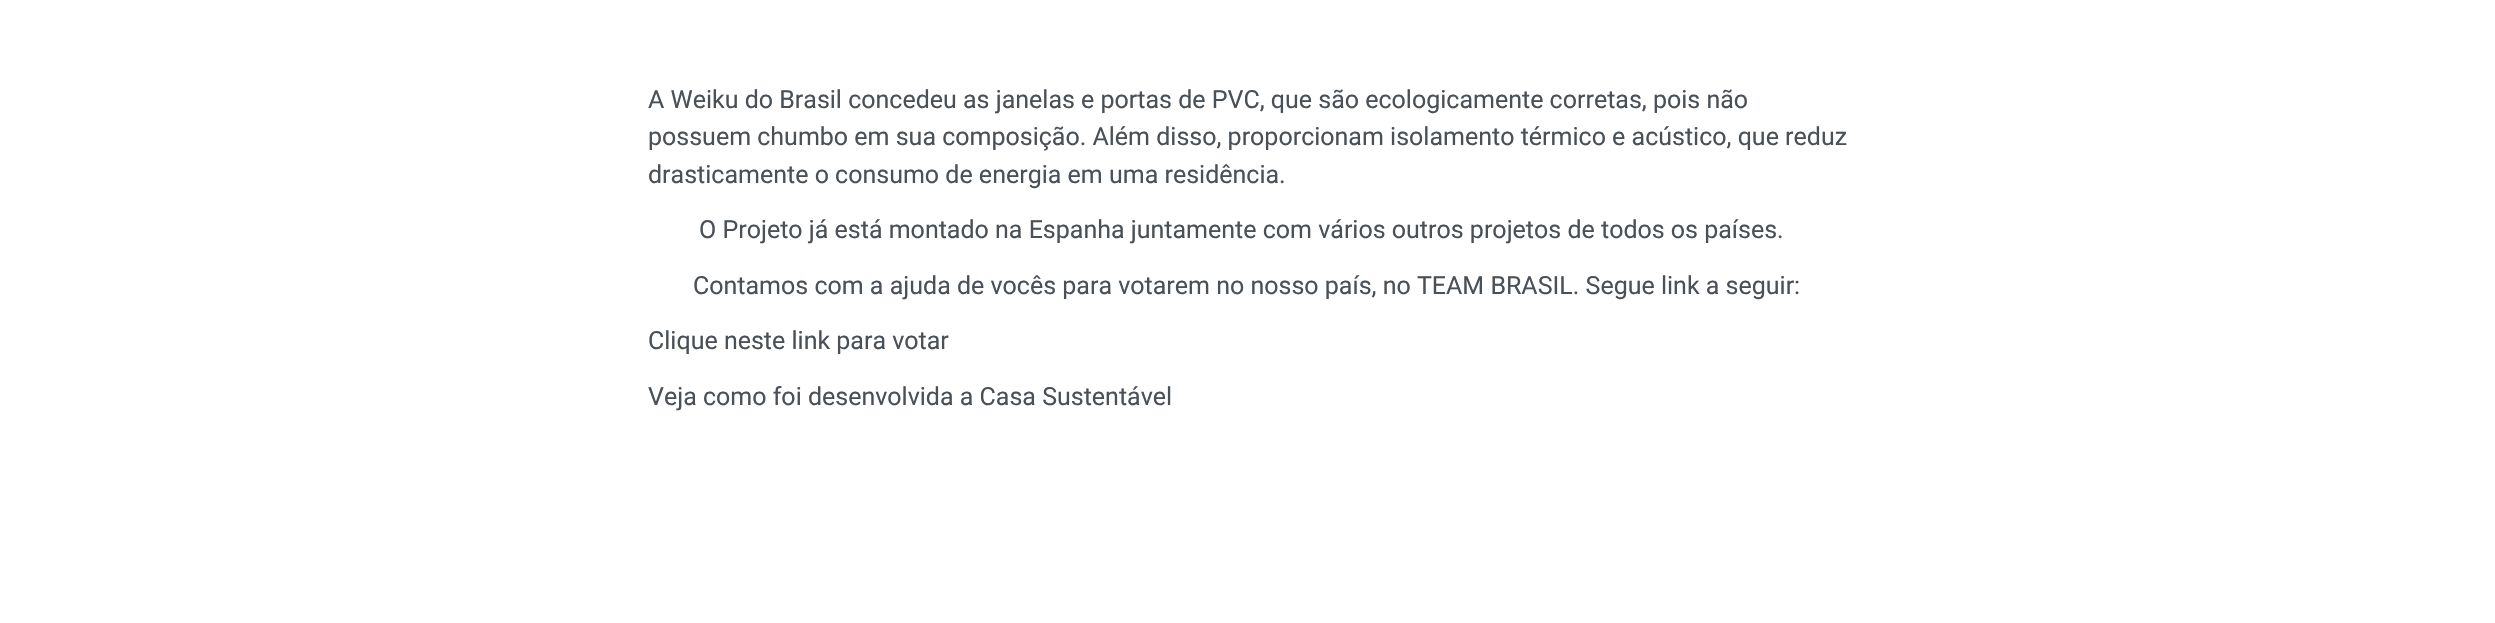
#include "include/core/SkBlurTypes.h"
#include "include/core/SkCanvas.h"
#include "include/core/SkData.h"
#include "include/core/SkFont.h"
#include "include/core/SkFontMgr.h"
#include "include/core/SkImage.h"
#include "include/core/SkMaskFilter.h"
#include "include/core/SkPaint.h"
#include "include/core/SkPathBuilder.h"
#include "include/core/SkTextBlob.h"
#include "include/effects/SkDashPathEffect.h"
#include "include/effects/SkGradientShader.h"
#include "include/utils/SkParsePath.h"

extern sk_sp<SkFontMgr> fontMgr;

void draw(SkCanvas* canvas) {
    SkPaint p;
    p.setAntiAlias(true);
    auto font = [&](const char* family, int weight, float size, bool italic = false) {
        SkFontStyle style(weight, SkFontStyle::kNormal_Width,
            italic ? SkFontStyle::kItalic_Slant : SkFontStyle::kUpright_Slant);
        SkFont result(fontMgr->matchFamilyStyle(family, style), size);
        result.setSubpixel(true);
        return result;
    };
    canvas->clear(0xFFFFFFFF);
    auto font1 = font("Roboto", 400, 25);
    p.setColor(0xFF495057);
    {
        const struct { const char* s; float x, y; } items[] = {
            {"A Weiku do Brasil concedeu as janelas e portas de PVC, que são ecologicamente corretas, pois não", 648, 108},
            {"possuem chumbo em sua composição. Além disso, proporcionam isolamento térmico e acústico, que reduz", 648, 145},
            {"drasticamente o consumo de energia em uma residência.", 648, 183},
            {"O Projeto já está montado na Espanha juntamente com vários outros projetos de todos os países.", 699, 238},
            {"Contamos com a ajuda de vocês para votarem no nosso país, no TEAM BRASIL. Segue link a seguir:", 693, 294},
            {"Clique neste link para votar", 648, 349},
            {"Veja como foi desenvolvida a Casa Sustentável", 648, 405},
        };
        for (auto [s, x, y] : items) {
            canvas->drawString(s, x, y, font1, p);
        }
    }
}
